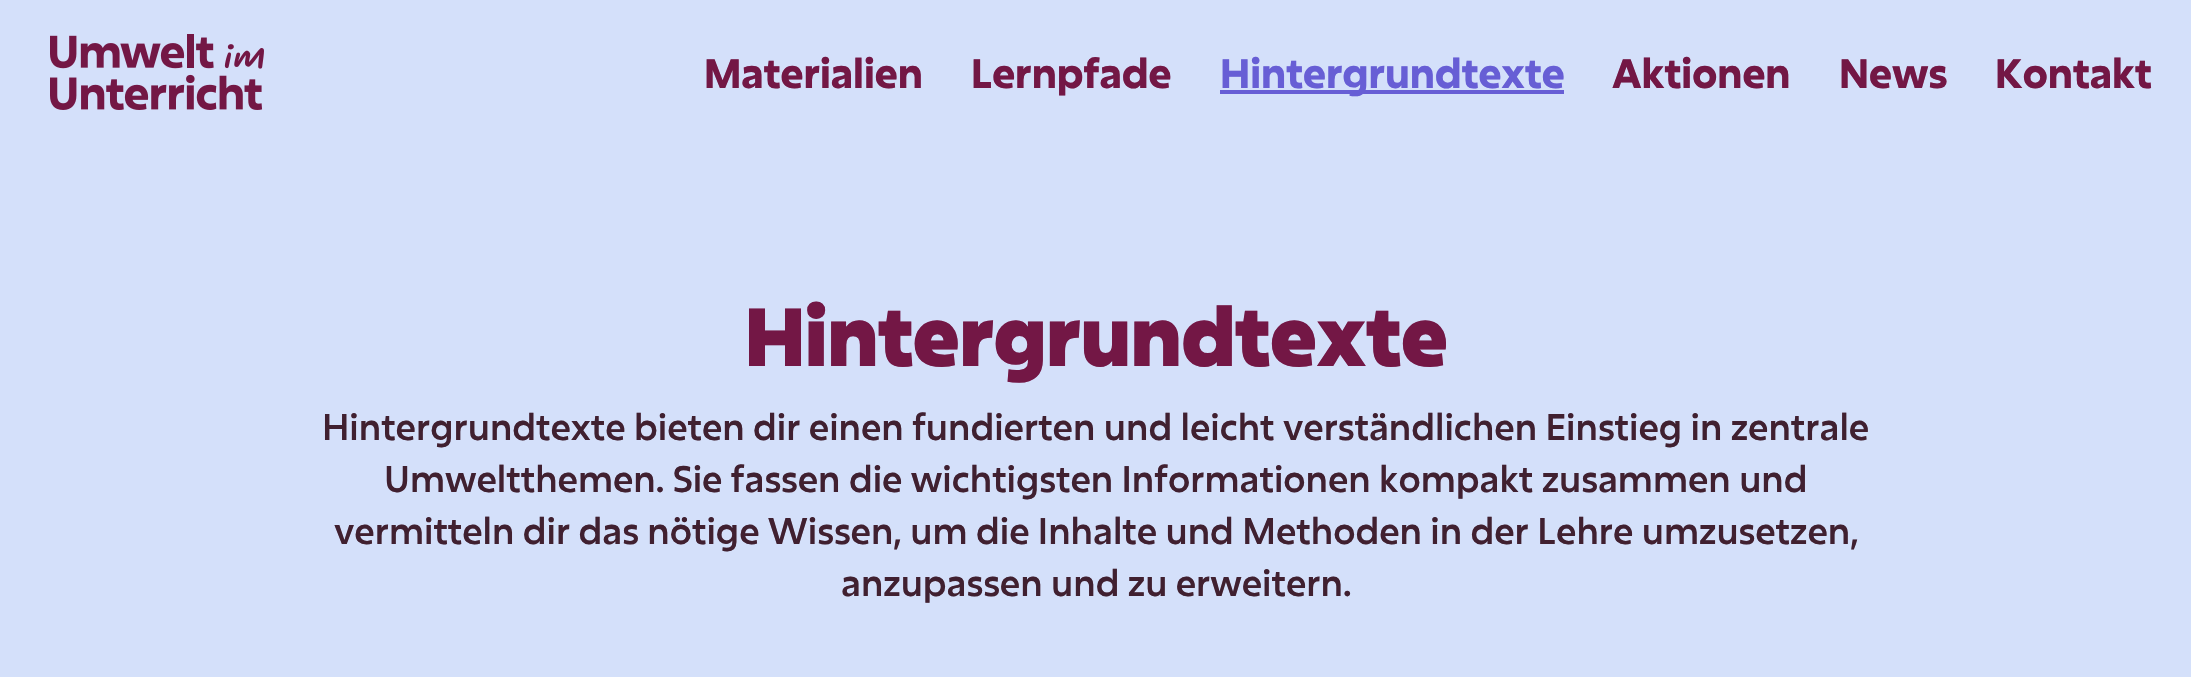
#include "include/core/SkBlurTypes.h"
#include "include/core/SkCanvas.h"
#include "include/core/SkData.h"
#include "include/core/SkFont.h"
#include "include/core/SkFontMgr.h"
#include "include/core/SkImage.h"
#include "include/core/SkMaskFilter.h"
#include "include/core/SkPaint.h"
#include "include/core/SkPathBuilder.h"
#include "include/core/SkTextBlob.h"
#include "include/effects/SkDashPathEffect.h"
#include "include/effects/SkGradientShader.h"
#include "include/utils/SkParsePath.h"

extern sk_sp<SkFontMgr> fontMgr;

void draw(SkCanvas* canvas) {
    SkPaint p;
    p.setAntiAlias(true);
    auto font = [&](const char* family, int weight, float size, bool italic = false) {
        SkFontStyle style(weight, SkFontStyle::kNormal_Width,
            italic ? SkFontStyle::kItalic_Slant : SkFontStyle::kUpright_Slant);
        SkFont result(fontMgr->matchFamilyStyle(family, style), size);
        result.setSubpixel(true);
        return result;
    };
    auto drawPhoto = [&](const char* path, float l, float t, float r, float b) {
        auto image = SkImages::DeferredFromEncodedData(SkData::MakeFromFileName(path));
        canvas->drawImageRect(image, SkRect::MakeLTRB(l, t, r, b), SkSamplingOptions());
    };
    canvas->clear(0xFFD4E0FA);
    drawPhoto("media/1.png", 50, 34, 264, 110);
    auto font1 = font("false", 700, 40);
    p.setColor(0xFF731745);
    canvas->drawString("Materialien", 704, 88, font1, p);
    canvas->drawString("Lernpfade", 971, 88, font1, p);
    p.setColor(0xFF675ED5);
    canvas->drawRect(SkRect::MakeLTRB(1220, 90, 1564, 94), p);
    canvas->drawString("Hintergrundtexte", 1220, 88, font1, p);
    p.setColor(0xFF731745);
    {
        const struct { const char* s; float x, y; } items[] = {
            {"Aktionen", 1612, 88},
            {"News", 1839, 88},
            {"Kontakt", 1995, 88},
        };
        for (auto [s, x, y] : items) {
            canvas->drawString(s, x, y, font1, p);
        }
    }
    auto font2 = font("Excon", 900, 80);
    canvas->drawString("Hintergrundtexte", 745, 366, font2, p);
    auto font3 = font("Excon", 500, 36);
    p.setColor(0xFF402030);
    {
        const struct { const char* s; float x, y; } items[] = {
            {"Hintergrundtexte bieten dir einen fundierten und leicht verständlichen Einstieg in zentrale", 322, 440},
            {"Umweltthemen. Sie fassen die wichtigsten Informationen kompakt zusammen und", 384, 492},
            {"vermitteln dir das nötige Wissen, um die Inhalte und Methoden in der Lehre umzusetzen,", 334, 544},
            {"anzupassen und zu erweitern.", 841, 596},
        };
        for (auto [s, x, y] : items) {
            canvas->drawString(s, x, y, font3, p);
        }
    }
}
